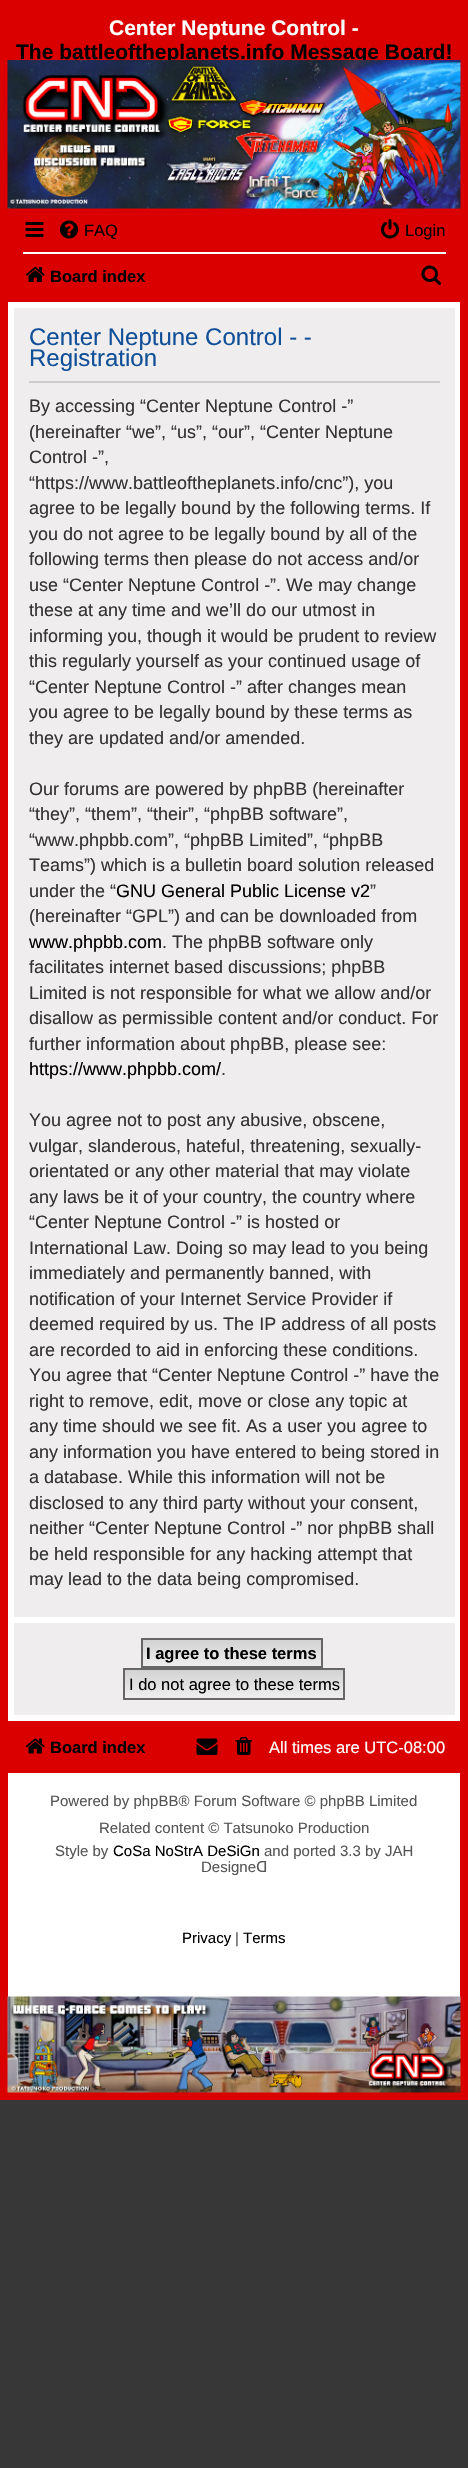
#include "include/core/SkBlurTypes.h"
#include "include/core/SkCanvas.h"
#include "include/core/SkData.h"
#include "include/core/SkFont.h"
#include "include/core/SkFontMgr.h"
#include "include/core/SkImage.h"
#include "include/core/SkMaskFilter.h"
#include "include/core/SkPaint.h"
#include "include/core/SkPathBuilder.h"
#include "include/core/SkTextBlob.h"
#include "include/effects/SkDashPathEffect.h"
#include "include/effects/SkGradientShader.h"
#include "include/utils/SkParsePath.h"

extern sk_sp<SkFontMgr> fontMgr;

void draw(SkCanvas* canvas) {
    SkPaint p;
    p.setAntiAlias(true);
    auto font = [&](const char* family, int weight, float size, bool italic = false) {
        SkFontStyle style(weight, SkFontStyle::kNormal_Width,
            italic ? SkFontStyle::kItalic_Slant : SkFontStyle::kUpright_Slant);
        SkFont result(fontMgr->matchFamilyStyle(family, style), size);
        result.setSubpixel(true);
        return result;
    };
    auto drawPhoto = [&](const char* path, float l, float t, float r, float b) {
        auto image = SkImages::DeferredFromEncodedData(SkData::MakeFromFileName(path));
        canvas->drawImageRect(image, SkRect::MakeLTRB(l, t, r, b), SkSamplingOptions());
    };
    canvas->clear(0xFF373737);
    p.setColor(0xFFFFFFFF);
    canvas->drawRect(SkRect::MakeLTRB(8, 302, 460, 1997), p);
    p.setStyle(SkPaint::kStroke_Style);
    p.setStrokeWidth(8);
    p.setColor(0xFFDA0000);
    canvas->drawRect(SkRect::MakeLTRB(4, 4, 464, 2096), p);
    p.setStyle(SkPaint::kFill_Style);
    canvas->drawRect(SkRect::MakeLTRB(8, 8, 460, 60), p);
    auto font1 = font("Liberation Sans", 700, 21);
    p.setColor(0xFFFFFFFF);
    canvas->drawString("Center Neptune Control -", 109, 35, font1, p);
    p.setColor(0xFF000000);
    canvas->drawString("The battleoftheplanets.info Message Board!", 16, 59, font1, p);
    p.setColor(0xFFDA0000);
    canvas->drawRect(SkRect::MakeLTRB(8, 204, 460, 302), p);
    drawPhoto("media/1.png", 7, 60, 461, 209);
    drawPhoto("media/2.png", 25, 222, 44, 237);
    drawPhoto("media/3.png", 60, 220, 78, 239);
    auto font2 = font("Liberation Sans", 400, 16.5f);
    p.setColor(0xFF000000);
    canvas->drawString("FAQ", 84, 236, font2, p);
    drawPhoto("media/4.png", 381, 219, 399, 239);
    canvas->drawString("Login", 405, 236, font2, p);
    p.setColor(0xFFFFFFFF);
    canvas->drawRect(SkRect::MakeLTRB(23, 252, 446, 254), p);
    drawPhoto("media/5.png", 25, 267, 45, 282);
    auto font3 = font("Liberation Sans", 700, 16.5f);
    p.setColor(0xFF000000);
    canvas->drawString("Board index", 50, 282, font3, p);
    drawPhoto("media/6.png", 421, 265, 441, 285);
    p.setColor(0xFFEFEDED);
    canvas->drawRect(SkRect::MakeLTRB(14, 308, 455, 1617), p);
    p.setColor(0xFFCCCCCC);
    canvas->drawRect(SkRect::MakeLTRB(29, 381, 440, 383), p);
    auto font4 = font("Liberation Sans", 400, 24);
    p.setColor(0xFF115098);
    canvas->drawString("Center Neptune Control - -", 29, 345, font4, p);
    canvas->drawString("Registration", 29, 366, font4, p);
    auto font5 = font("Liberation Sans", 400, 18);
    p.setColor(0xFF333333);
    {
        const struct { const char* s; float x, y; } items[] = {
            {"By accessing “Center Neptune Control -”", 29, 412},
            {"(hereinafter “we”, “us”, “our”, “Center Neptune", 29, 438},
            {"Control -”,", 29, 463},
            {"“https://www.battleoftheplanets.info/cnc”), you", 29, 489},
            {"agree to be legally bound by the following terms. If", 29, 514},
            {"you do not agree to be legally bound by all of the", 29, 540},
            {"following terms then please do not access and/or", 29, 565},
            {"use “Center Neptune Control -”. We may change", 29, 591},
            {"these at any time and we’ll do our utmost in", 29, 616},
            {"informing you, though it would be prudent to review", 29, 642},
            {"this regularly yourself as your continued usage of", 29, 667},
            {"“Center Neptune Control -” after changes mean", 29, 693},
            {"you agree to be legally bound by these terms as", 29, 718},
            {"they are updated and/or amended.", 29, 744},
            {"Our forums are powered by phpBB (hereinafter", 29, 795},
            {"“they”, “them”, “their”, “phpBB software”,", 29, 820},
            {"“www.phpbb.com”, “phpBB Limited”, “phpBB", 29, 846},
            {"Teams”) which is a bulletin board solution released", 29, 871},
            {"under the “", 29, 897},
        };
        for (auto [s, x, y] : items) {
            canvas->drawString(s, x, y, font5, p);
        }
    }
    p.setColor(0xFF000000);
    canvas->drawString("GNU General Public License v2", 116, 897, font5, p);
    p.setColor(0xFF333333);
    canvas->drawString("”", 370, 897, font5, p);
    canvas->drawString("(hereinafter “GPL”) and can be downloaded from", 29, 922, font5, p);
    p.setColor(0xFF000000);
    canvas->drawString("www.phpbb.com", 29, 948, font5, p);
    p.setColor(0xFF333333);
    {
        const struct { const char* s; float x, y; } items[] = {
            {". The phpBB software only", 162, 948},
            {"facilitates internet based discussions; phpBB", 29, 973},
            {"Limited is not responsible for what we allow and/or", 29, 999},
            {"disallow as permissible content and/or conduct. For", 29, 1024},
            {"further information about phpBB, please see:", 29, 1050},
        };
        for (auto [s, x, y] : items) {
            canvas->drawString(s, x, y, font5, p);
        }
    }
    p.setColor(0xFF000000);
    canvas->drawString("https://www.phpbb.com/", 29, 1075, font5, p);
    p.setColor(0xFF333333);
    {
        const struct { const char* s; float x, y; } items[] = {
            {".", 221, 1075},
            {"You agree not to post any abusive, obscene,", 29, 1126},
            {"vulgar, slanderous, hateful, threatening, sexually-", 29, 1152},
            {"orientated or any other material that may violate", 29, 1177},
            {"any laws be it of your country, the country where", 29, 1203},
            {"“Center Neptune Control -” is hosted or", 29, 1228},
            {"International Law. Doing so may lead to you being", 29, 1254},
            {"immediately and permanently banned, with", 29, 1279},
            {"notification of your Internet Service Provider if", 29, 1305},
            {"deemed required by us. The IP address of all posts", 29, 1330},
            {"are recorded to aid in enforcing these conditions.", 29, 1356},
            {"You agree that “Center Neptune Control -” have the", 29, 1381},
            {"right to remove, edit, move or close any topic at", 29, 1407},
            {"any time should we see fit. As a user you agree to", 29, 1432},
            {"any information you have entered to being stored in", 29, 1458},
            {"a database. While this information will not be", 29, 1483},
            {"disclosed to any third party without your consent,", 29, 1509},
            {"neither “Center Neptune Control -” nor phpBB shall", 29, 1534},
            {"be held responsible for any hacking attempt that", 29, 1560},
            {"may lead to the data being compromised.", 29, 1585},
        };
        for (auto [s, x, y] : items) {
            canvas->drawString(s, x, y, font5, p);
        }
    }
    p.setColor(0xFFEFEDED);
    canvas->drawRect(SkRect::MakeLTRB(14, 1623, 455, 1715), p);
    {
        const SkColor colors[] = {0xFFD2D2D2, 0xFFEFEFEF};
        const float stops[] = {0, 1};
        const SkPoint ends[] = {{232, 1640}, {232, 1667}};
        p.setShader(SkGradientShader::MakeLinear(ends, colors, stops, 2, SkTileMode::kClamp));
        p.setAlpha(255);
    }
    canvas->drawRect(SkRect::MakeLTRB(143, 1640, 321, 1665), p);
    p.setStyle(SkPaint::kStroke_Style);
    p.setStrokeWidth(2);
    p.setShader(nullptr);
    p.setColor(0xFF666666);
    canvas->drawRect(SkRect::MakeLTRB(142, 1639, 322, 1667), p);
    p.setStyle(SkPaint::kFill_Style);
    p.setColor(0xFF000000);
    canvas->drawString("I agree to these terms", 146, 1659, font3, p);
    {
        const SkColor colors[] = {0xFFD2D2D2, 0xFFEFEFEF};
        const float stops[] = {0, 1};
        const SkPoint ends[] = {{234, 1670}, {234, 1698}};
        p.setShader(SkGradientShader::MakeLinear(ends, colors, stops, 2, SkTileMode::kClamp));
        p.setAlpha(255);
    }
    canvas->drawRect(SkRect::MakeLTRB(125, 1670, 343, 1696), p);
    p.setStyle(SkPaint::kStroke_Style);
    p.setShader(nullptr);
    p.setColor(0xFF666666);
    canvas->drawRect(SkRect::MakeLTRB(124, 1669, 344, 1699), p);
    p.setStyle(SkPaint::kFill_Style);
    p.setColor(0xFF000000);
    canvas->drawString("I do not agree to these terms", 129, 1690, font2, p);
    p.setColor(0xFFDA0000);
    canvas->drawRect(SkRect::MakeLTRB(8, 1721, 460, 1773), p);
    drawPhoto("media/7.png", 25, 1738, 45, 1754);
    p.setColor(0xFF000000);
    canvas->drawString("Board index", 50, 1753, font3, p);
    drawPhoto("media/8.png", 196, 1738, 218, 1755);
    drawPhoto("media/9.png", 235, 1737, 252, 1755);
    p.setColor(0xFFFFFFFF);
    canvas->drawString("All times are UTC-08:00", 269, 1753, font2, p);
    auto font6 = font("Liberation Sans", 400, 15);
    p.setColor(0xFF555555);
    {
        const struct { const char* s; float x, y; } items[] = {
            {"Powered by phpBB® Forum Software © phpBB Limited", 50, 1806},
            {"Related content © Tatsunoko Production", 99, 1833},
            {"Style by", 55, 1856},
        };
        for (auto [s, x, y] : items) {
            canvas->drawString(s, x, y, font6, p);
        }
    }
    p.setColor(0xFF000000);
    canvas->drawString("CoSa NoStrA DeSiGn", 113, 1856, font6, p);
    p.setColor(0xFF555555);
    canvas->drawString("and ported 3.3 by JAH", 264, 1856, font6, p);
    canvas->drawString("Designe", 201, 1872, font6, p);
    auto font7 = font("DejaVu Sans", 400, 15);
    canvas->drawString("ᗡ", 256, 1872, font7, p);
    p.setColor(0xFF000000);
    canvas->drawString("Privacy", 182, 1943, font6, p);
    p.setColor(0xFF555555);
    canvas->drawString("|", 235, 1943, font6, p);
    p.setColor(0xFF000000);
    canvas->drawString("Terms", 243, 1943, font6, p);
    drawPhoto("media/10.png", 7, 1996, 461, 2093);
}
